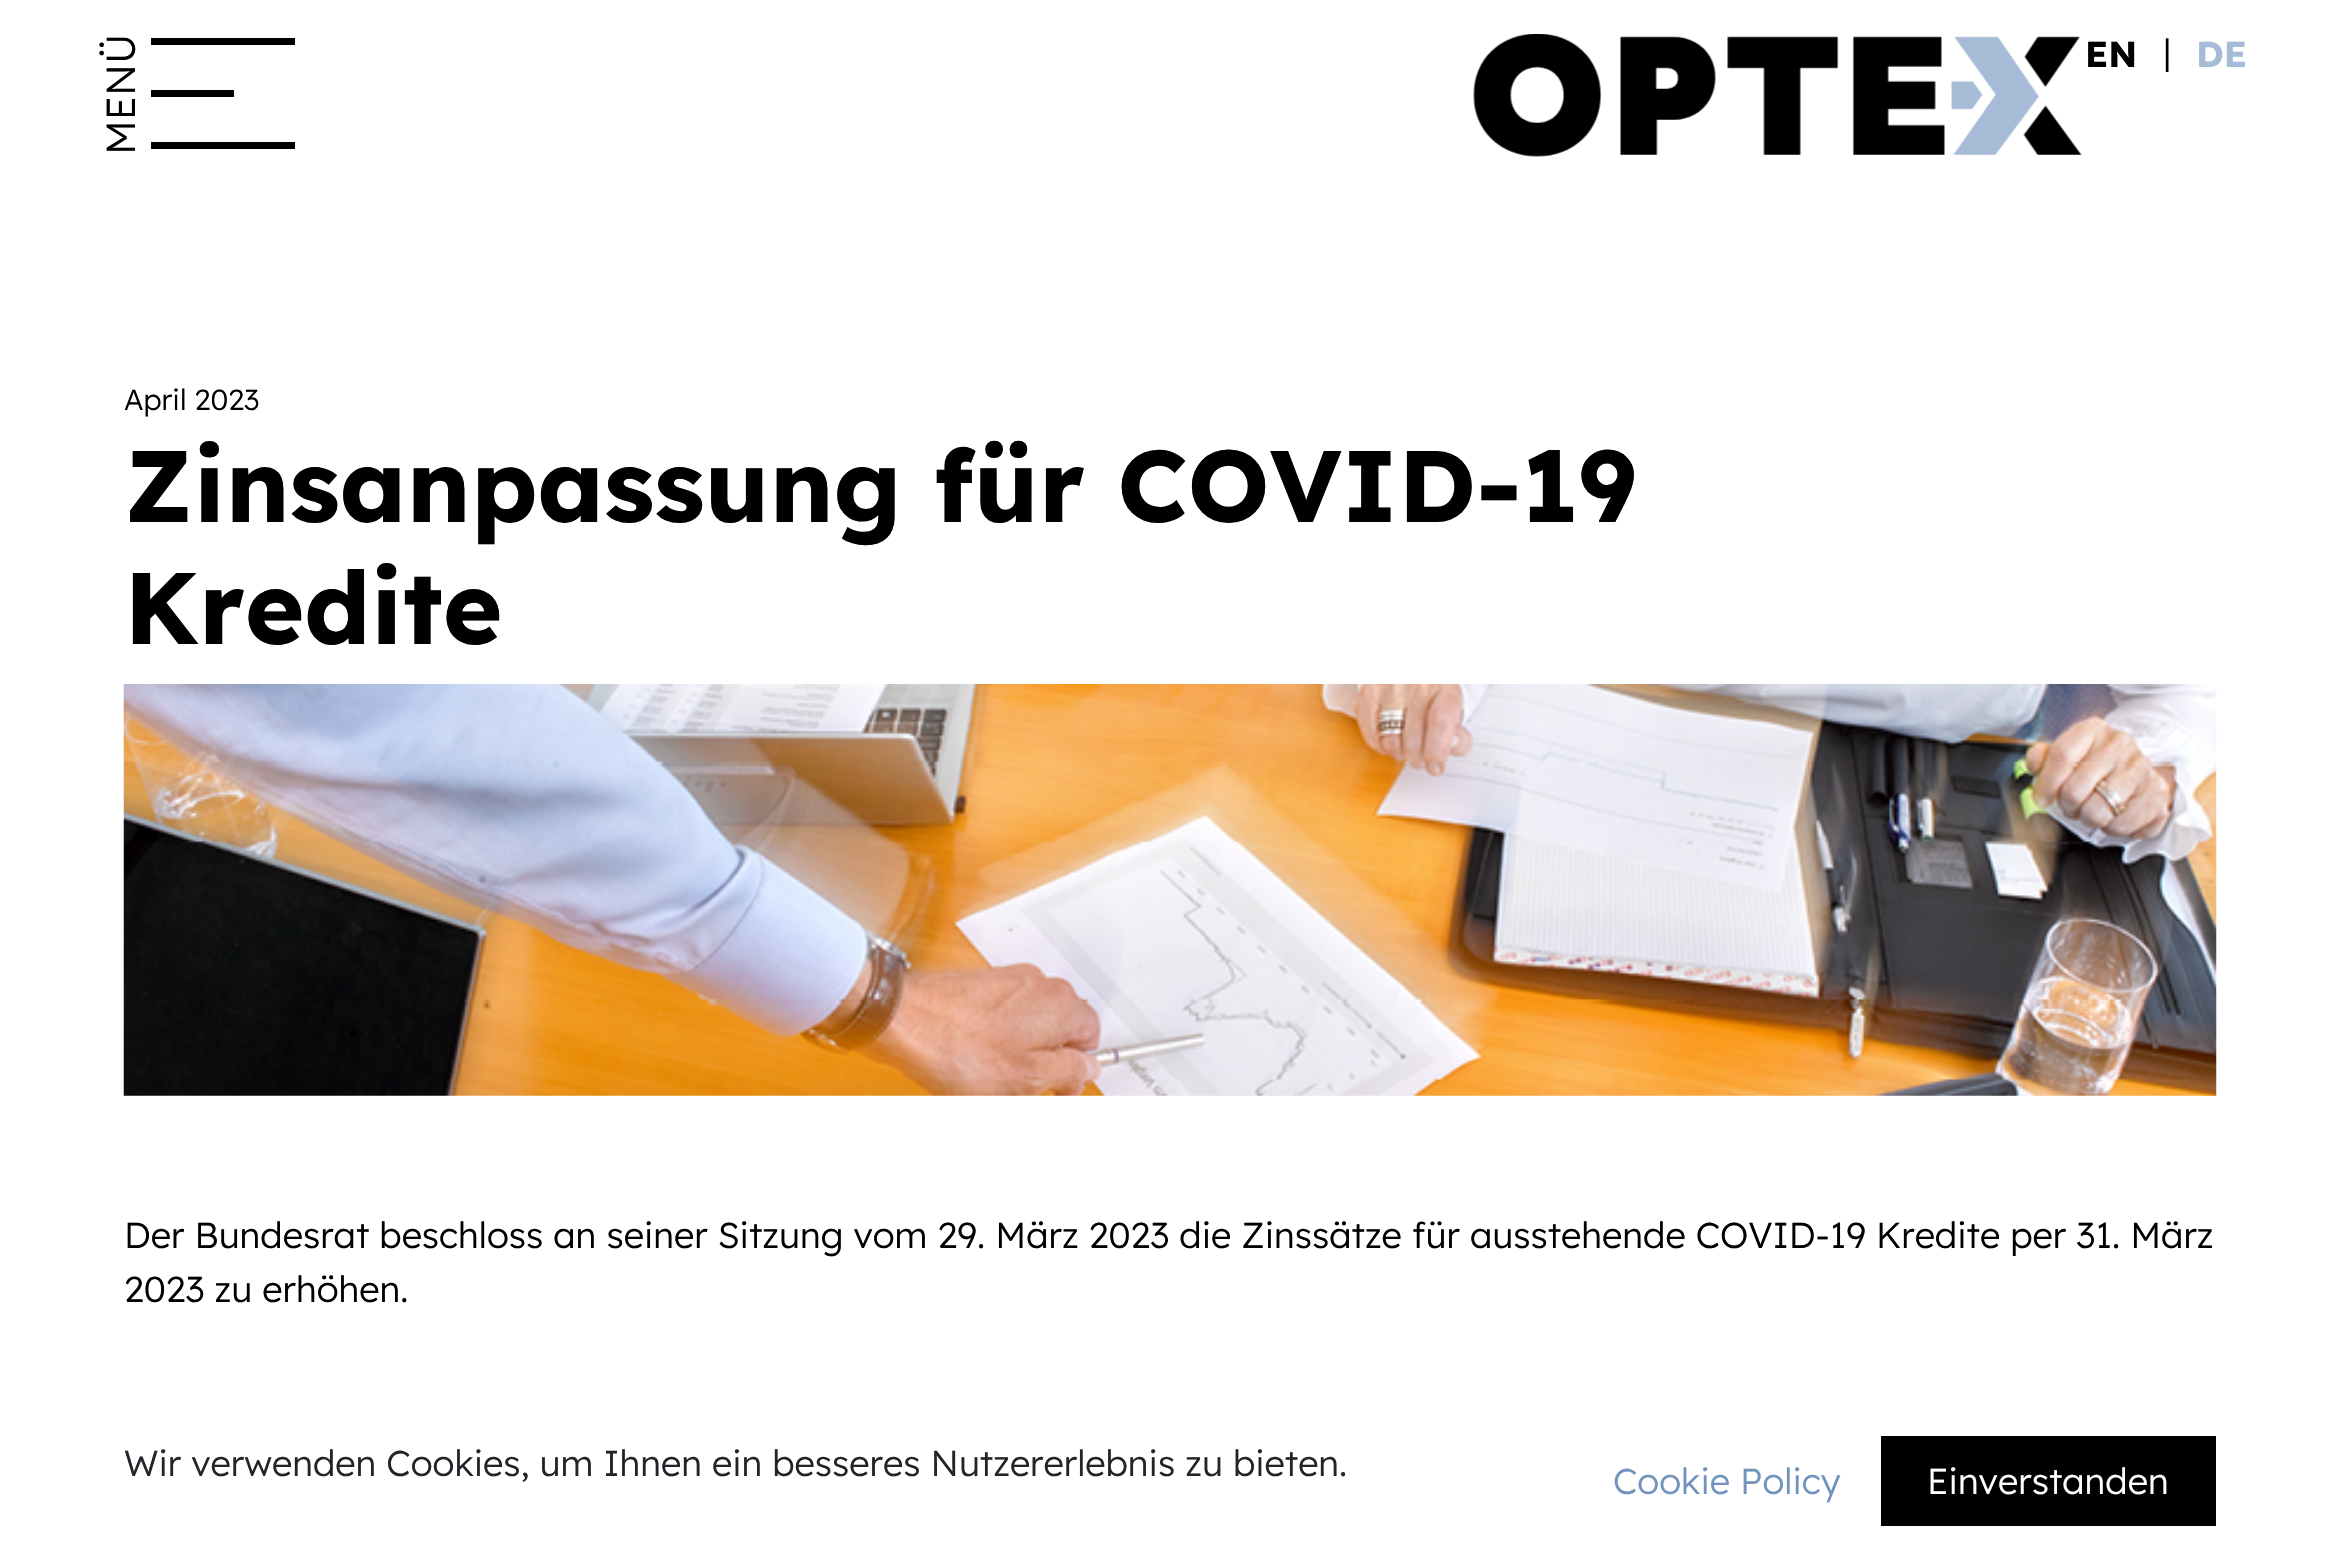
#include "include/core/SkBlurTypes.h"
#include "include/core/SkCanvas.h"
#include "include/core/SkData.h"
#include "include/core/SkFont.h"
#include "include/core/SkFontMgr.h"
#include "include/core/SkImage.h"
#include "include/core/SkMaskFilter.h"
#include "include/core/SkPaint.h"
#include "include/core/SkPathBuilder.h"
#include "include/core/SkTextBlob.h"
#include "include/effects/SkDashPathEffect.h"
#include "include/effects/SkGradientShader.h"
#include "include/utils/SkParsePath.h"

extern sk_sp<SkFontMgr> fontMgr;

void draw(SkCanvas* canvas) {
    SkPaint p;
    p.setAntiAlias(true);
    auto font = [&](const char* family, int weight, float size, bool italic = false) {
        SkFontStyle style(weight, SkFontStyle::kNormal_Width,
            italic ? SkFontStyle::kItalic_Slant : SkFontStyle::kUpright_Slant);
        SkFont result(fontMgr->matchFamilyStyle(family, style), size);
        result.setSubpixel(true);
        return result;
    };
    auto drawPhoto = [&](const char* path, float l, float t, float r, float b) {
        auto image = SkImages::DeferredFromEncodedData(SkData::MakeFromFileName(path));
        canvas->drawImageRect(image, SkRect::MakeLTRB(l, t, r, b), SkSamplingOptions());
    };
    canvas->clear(0xFFFFFFFF);
    auto font1 = font("Lexend", 300, 40.5f);
    p.setColor(0xFF000000);
    canvas->save();
    canvas->rotate(-90, 135, 155);
    canvas->drawString("MENÜ", 135, 155, font1, p);
    canvas->restore();
    {
        const struct { float l, t, r, b; SkColor color; } items[] = {
            {151, 38, 295, 45, 0xFF000000},
            {151, 90, 234, 97, 0xFF000000},
            {151, 142, 295, 149, 0xFF000000},
        };
        for (auto [l, t, r, b, color] : items) {
            p.setColor(color);
            canvas->drawRect(SkRect::MakeLTRB(l, t, r, b), p);
        }
    }
    drawPhoto("media/1.png", 1473, 34, 2082, 157);
    auto font2 = font("Lexend", 700, 36);
    canvas->drawString("EN", 2085, 67, font2, p);
    auto font3 = font("Lexend", 300, 36);
    canvas->drawString("|", 2163, 65, font3, p);
    p.setColor(0xFFA6BCD6);
    canvas->drawString("DE", 2196, 67, font2, p);
    auto font4 = font("Lexend", 300, 29);
    p.setColor(0xFF000000);
    canvas->drawString("April 2023", 124, 410, font4, p);
    auto font5 = font("Lexend", 700, 101.25f);
    canvas->drawString("Zinsanpassung für COVID-19", 124, 522, font5, p);
    canvas->drawString("Kredite", 124, 644, font5, p);
    drawPhoto("media/2.png", 123, 684, 2217, 1096);
    canvas->drawString("Der Bundesrat beschloss an seiner Sitzung vom 29. März 2023 die Zinssätze für ausstehende COVID-19 Kredite per 31. März", 124, 1248, font3, p);
    canvas->drawString("2023 zu erhöhen.", 124, 1302, font3, p);
    p.setColor(0xFF212529);
    canvas->drawString("Wir verwenden Cookies, um Ihnen ein besseres Nutzererlebnis zu bieten.", 124, 1476, font3, p);
    p.setColor(0xFF7293BE);
    canvas->drawString("Cookie Policy", 1613, 1494, font3, p);
    p.setColor(0xFF000000);
    canvas->drawRect(SkRect::MakeLTRB(1881, 1436, 2216, 1526), p);
    p.setColor(0xFFFFFFFF);
    canvas->drawString("Einverstanden", 1927, 1494, font3, p);
}
